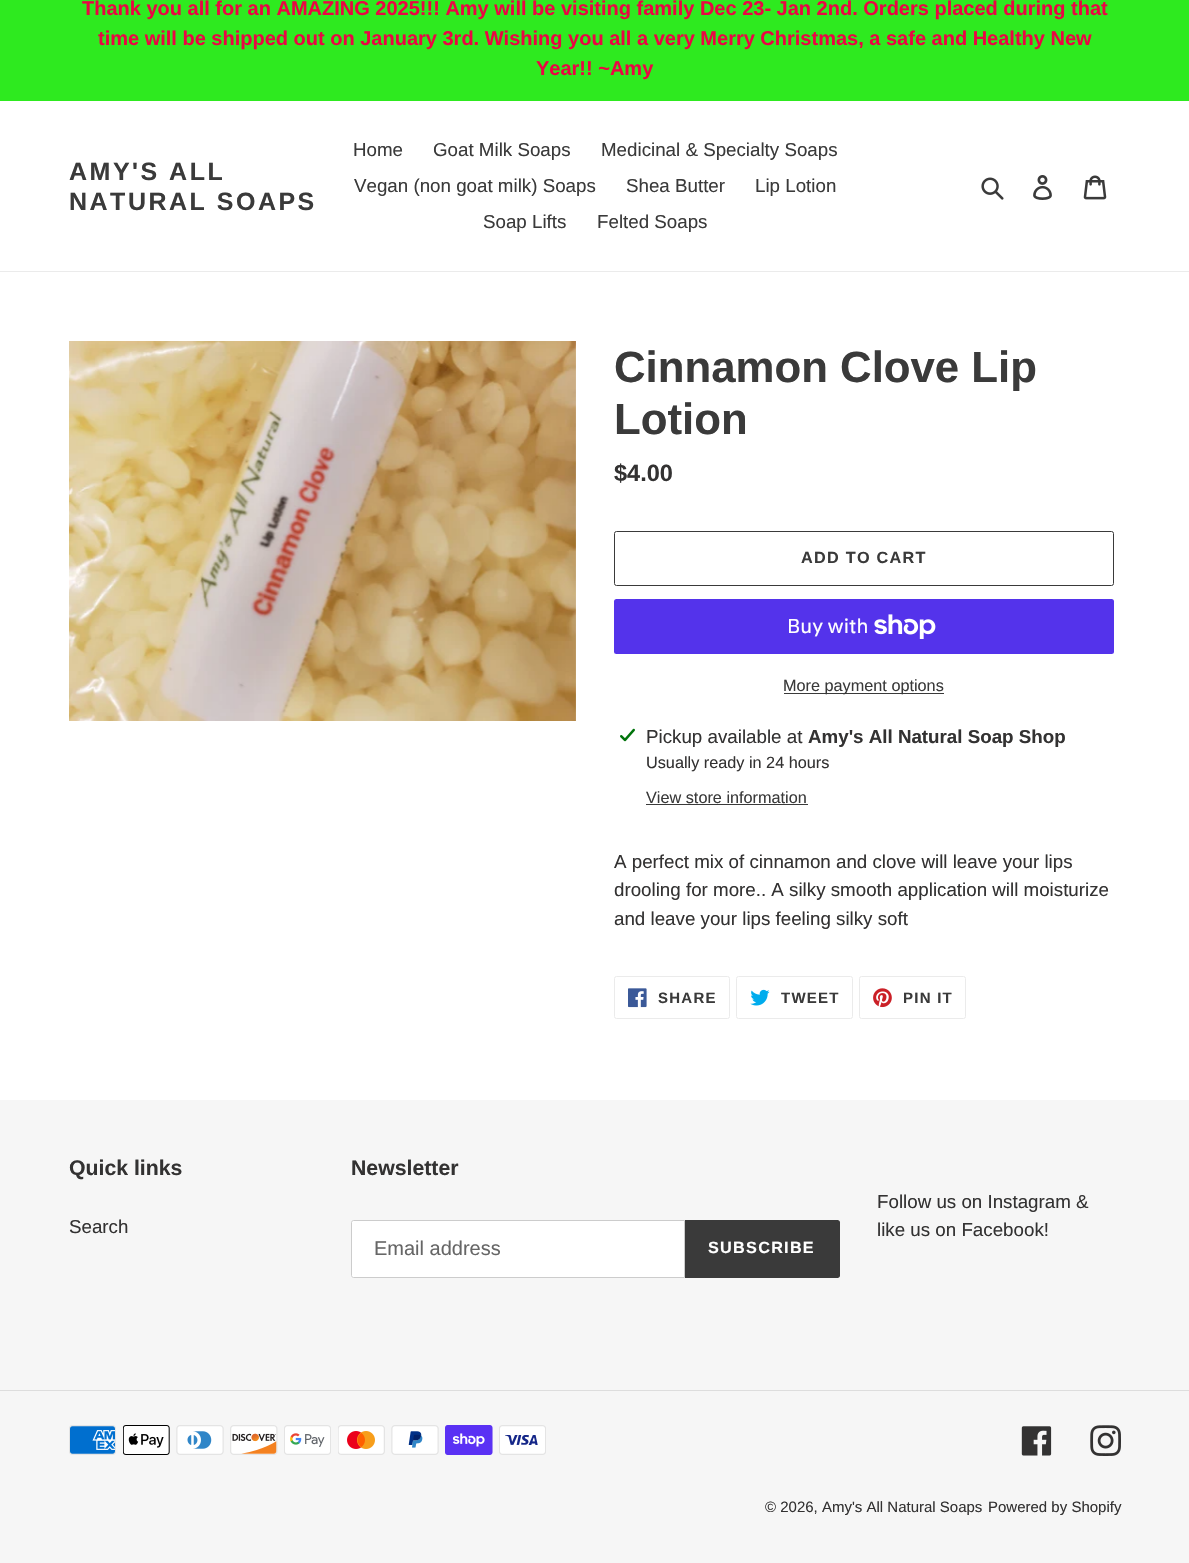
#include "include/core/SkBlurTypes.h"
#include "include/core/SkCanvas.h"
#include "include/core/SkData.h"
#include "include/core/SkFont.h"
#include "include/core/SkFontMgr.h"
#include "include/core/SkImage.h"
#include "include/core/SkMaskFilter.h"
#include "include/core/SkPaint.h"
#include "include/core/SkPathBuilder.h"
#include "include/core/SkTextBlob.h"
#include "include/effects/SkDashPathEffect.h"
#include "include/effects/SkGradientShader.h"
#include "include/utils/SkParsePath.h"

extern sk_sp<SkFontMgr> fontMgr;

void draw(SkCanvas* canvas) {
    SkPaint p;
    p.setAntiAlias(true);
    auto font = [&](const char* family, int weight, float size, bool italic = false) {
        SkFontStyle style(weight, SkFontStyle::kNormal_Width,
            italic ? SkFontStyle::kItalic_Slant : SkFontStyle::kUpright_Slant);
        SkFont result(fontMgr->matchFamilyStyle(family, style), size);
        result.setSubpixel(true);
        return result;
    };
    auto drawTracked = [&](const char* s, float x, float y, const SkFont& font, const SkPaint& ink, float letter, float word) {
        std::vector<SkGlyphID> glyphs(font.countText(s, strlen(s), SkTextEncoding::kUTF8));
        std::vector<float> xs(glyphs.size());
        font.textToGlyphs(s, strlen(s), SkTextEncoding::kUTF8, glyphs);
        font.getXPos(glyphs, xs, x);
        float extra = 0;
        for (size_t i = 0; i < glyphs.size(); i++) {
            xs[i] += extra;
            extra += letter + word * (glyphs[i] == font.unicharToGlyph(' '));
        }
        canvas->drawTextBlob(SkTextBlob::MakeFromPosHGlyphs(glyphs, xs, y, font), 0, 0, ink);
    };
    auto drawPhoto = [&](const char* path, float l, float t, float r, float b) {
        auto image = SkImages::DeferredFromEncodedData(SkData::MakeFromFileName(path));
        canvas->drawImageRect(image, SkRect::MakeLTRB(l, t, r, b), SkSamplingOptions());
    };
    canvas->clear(0xFFFFFFFF);
    p.setColor(0xFF2EEA1F);
    canvas->drawRect(SkRect::MakeLTRB(0, 0, 1189, 101), p);
    auto font1 = font("Liberation Sans", 700, 20);
    p.setColor(0xFFEA0643);
    {
        const struct { const char* s; float x, y; } items[] = {
            {"Thank you all for an AMAZING 2025!!! Amy will be visiting family Dec 23- Jan 2nd. Orders placed during that", 82, 15},
            {"time will be shipped out on January 3rd. Wishing you all a very Merry Christmas, a safe and Healthy New", 98, 45},
            {"Year!! ~Amy", 536, 75},
        };
        for (auto [s, x, y] : items) {
            canvas->drawString(s, x, y, font1, p);
        }
    }
    p.setColor(0xFFEBEBEB);
    canvas->drawRect(SkRect::MakeLTRB(0, 271, 1189, 272), p);
    auto font2 = font("Liberation Sans", 700, 25);
    p.setColor(0xFF3A3A3A);
    drawTracked("AMY'S ALL", 69, 180, font2, p, 2.5f, 0);
    drawTracked("NATURAL SOAPS", 69, 210, font2, p, 2.5f, 0);
    auto font3 = font("Liberation Sans", 400, 18.75f);
    {
        const struct { const char* s; float x, y; } items[] = {
            {"Home", 353, 156},
            {"Goat Milk Soaps", 433, 156},
            {"Medicinal & Specialty Soaps", 601, 156},
            {"Vegan (non goat milk) Soaps", 354, 192},
            {"Shea Butter", 626, 192},
            {"Lip Lotion", 755, 192},
            {"Soap Lifts", 483, 228},
            {"Felted Soaps", 597, 228},
        };
        for (auto [s, x, y] : items) {
            canvas->drawString(s, x, y, font3, p);
        }
    }
    drawPhoto("media/1.png", 981, 177, 1004, 200);
    drawPhoto("media/2.png", 1033, 175, 1052, 200);
    drawPhoto("media/3.png", 1083, 175, 1107, 200);
    drawPhoto("media/4.png", 69, 341, 576, 721);
    auto font4 = font("Liberation Sans", 700, 43.75f);
    canvas->drawString("Cinnamon Clove Lip", 614, 382, font4, p);
    canvas->drawString("Lotion", 614, 434, font4, p);
    auto font5 = font("Liberation Sans", 700, 23.5f);
    p.setColor(0xFF333232);
    canvas->drawString("$4.00", 614, 481, font5, p);
    p.setStyle(SkPaint::kStroke_Style);
    p.setStrokeWidth(1);
    p.setColor(0xFF3A3A3A);
    canvas->drawRoundRect(SkRect::MakeLTRB(614.5f, 531.5f, 1113.5f, 585.5f), 2, 2, p);
    auto font6 = font("Liberation Sans", 700, 16.25f);
    p.setStyle(SkPaint::kFill_Style);
    drawTracked("ADD TO CART", 801, 563, font6, p, 1.25f, 0);
    p.setColor(0xFF5433EB);
    canvas->drawRoundRect(SkRect::MakeLTRB(614, 599, 1114, 654), 2.5f, 2.5f, p);
    auto font7 = font("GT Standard", 400, 20);
    p.setColor(0xFFFFFFFF);
    canvas->drawString("Buy with", 787, 633, font7, p);
    drawPhoto("media/5.png", 874, 614, 936, 639);
    p.setColor(0xFF3A3A3A);
    canvas->drawRect(SkRect::MakeLTRB(784, 693, 944, 694), p);
    auto font8 = font("Liberation Sans", 400, 16.25f);
    canvas->drawString("More payment options", 783, 691, font8, p);
    drawPhoto("media/6.png", 620, 728, 635, 742);
    p.setColor(0xFF333232);
    canvas->drawString("Pickup available at", 646, 743, font3, p);
    auto font9 = font("Liberation Sans", 700, 18.75f);
    canvas->drawString("Amy's All Natural Soap Shop", 808, 743, font9, p);
    canvas->drawString("Usually ready in 24 hours", 646, 768, font8, p);
    p.setColor(0xFF3A3A3A);
    canvas->drawString("View store information", 646, 803, font8, p);
    canvas->drawRect(SkRect::MakeLTRB(646, 804, 808, 805), p);
    p.setColor(0xFF333232);
    {
        const struct { const char* s; float x, y; } items[] = {
            {"A perfect mix of cinnamon and clove will leave your lips", 614, 868},
            {"drooling for more.. A silky smooth application will moisturize", 614, 896},
            {"and leave your lips feeling silky soft", 614, 925},
        };
        for (auto [s, x, y] : items) {
            canvas->drawString(s, x, y, font3, p);
        }
    }
    p.setStyle(SkPaint::kStroke_Style);
    p.setColor(0xFFEBEBEB);
    canvas->drawRoundRect(SkRect::MakeLTRB(614.5f, 976.5f, 729.5f, 1018.5f), 2, 2, p);
    drawPhoto("media/7.png", 628, 988, 647, 1008);
    auto font10 = font("Liberation Sans", 700, 15);
    p.setStyle(SkPaint::kFill_Style);
    p.setColor(0xFF3A3A3A);
    drawTracked("SHARE", 658, 1003, font10, p, 1.25f, 0);
    p.setStyle(SkPaint::kStroke_Style);
    p.setColor(0xFFEBEBEB);
    canvas->drawRoundRect(SkRect::MakeLTRB(736.5f, 976.5f, 852.5f, 1018.5f), 2, 2, p);
    drawPhoto("media/8.png", 750, 989, 770, 1006);
    p.setStyle(SkPaint::kFill_Style);
    p.setColor(0xFF3A3A3A);
    drawTracked("TWEET", 781, 1003, font10, p, 1.25f, 0);
    p.setStyle(SkPaint::kStroke_Style);
    p.setColor(0xFFEBEBEB);
    canvas->drawRoundRect(SkRect::MakeLTRB(859.5f, 976.5f, 965.5f, 1018.5f), 2, 2, p);
    drawPhoto("media/9.png", 873, 988, 892, 1008);
    p.setStyle(SkPaint::kFill_Style);
    p.setColor(0xFF3A3A3A);
    drawTracked("PIN IT", 903, 1003, font10, p, 1.25f, 0);
    p.setColor(0xFFF6F6F6);
    canvas->drawRect(SkRect::MakeLTRB(0, 1100, 1189, 1563), p);
    auto font11 = font("Liberation Sans", 700, 21.25f);
    p.setColor(0xFF333232);
    canvas->drawString("Quick links", 69, 1175, font11, p);
    canvas->drawString("Search", 69, 1233, font3, p);
    canvas->drawString("Newsletter", 351, 1175, font11, p);
    p.setColor(0xFFFFFFFF);
    canvas->drawPath(SkPathBuilder().moveTo(353.5f, 1220.5f).lineTo(684.5f, 1220.5f).lineTo(684.5f, 1277.5f).lineTo(353.5f, 1277.5f).cubicTo(352.5f, 1277.5f, 351.5f, 1276.5f, 351.5f, 1275.5f).lineTo(351.5f, 1222.5f).cubicTo(351.5f, 1221.5f, 352.5f, 1220.5f, 353.5f, 1220.5f).close().detach(), p);
    p.setStyle(SkPaint::kStroke_Style);
    p.setColor(0xFFCCCCCC);
    canvas->drawPath(SkPathBuilder().moveTo(353.5f, 1220.5f).lineTo(684.5f, 1220.5f).lineTo(684.5f, 1277.5f).lineTo(353.5f, 1277.5f).cubicTo(352.5f, 1277.5f, 351.5f, 1276.5f, 351.5f, 1275.5f).lineTo(351.5f, 1222.5f).cubicTo(351.5f, 1221.5f, 352.5f, 1220.5f, 353.5f, 1220.5f).close().detach(), p);
    auto font12 = font("Liberation Sans", 400, 20);
    p.setStyle(SkPaint::kFill_Style);
    p.setColor(0xFF666666);
    canvas->drawString("Email address", 374, 1255, font12, p);
    p.setColor(0xFF3A3A3A);
    canvas->drawPath(SkPathBuilder().moveTo(685, 1220).lineTo(837.5f, 1220).cubicTo(839, 1220, 840, 1221, 840, 1222.5f).lineTo(840, 1275.5f).cubicTo(840, 1277, 839, 1278, 837.5f, 1278).lineTo(685, 1278).close().detach(), p);
    p.setColor(0xFFFFFFFF);
    drawTracked("SUBSCRIBE", 708, 1253, font6, p, 1.25f, 0);
    p.setColor(0xFF333232);
    canvas->drawString("Follow us on Instagram &", 877, 1208, font3, p);
    canvas->drawString("like us on Facebook!", 877, 1236, font3, p);
    p.setColor(0xFFDDDDDD);
    canvas->drawRect(SkRect::MakeLTRB(0, 1390, 1189, 1391), p);
    drawPhoto("media/10.png", 69, 1425, 116, 1455);
    drawPhoto("media/11.png", 123, 1425, 170, 1455);
    drawPhoto("media/12.png", 176, 1425, 224, 1455);
    drawPhoto("media/13.png", 230, 1425, 278, 1455);
    drawPhoto("media/14.png", 284, 1425, 331, 1455);
    drawPhoto("media/15.png", 338, 1425, 385, 1455);
    drawPhoto("media/16.png", 391, 1425, 439, 1455);
    drawPhoto("media/17.png", 445, 1425, 493, 1455);
    drawPhoto("media/18.png", 499, 1425, 546, 1455);
    drawPhoto("media/19.png", 1021, 1426, 1052, 1456);
    drawPhoto("media/20.png", 1090, 1425, 1121, 1456);
    auto font13 = font("Liberation Sans", 400, 15);
    p.setColor(0xFF333232);
    canvas->drawString("© 2026, Amy's All Natural Soaps", 765, 1512, font13, p);
    canvas->drawString("Powered by Shopify", 988, 1512, font13, p);
}
